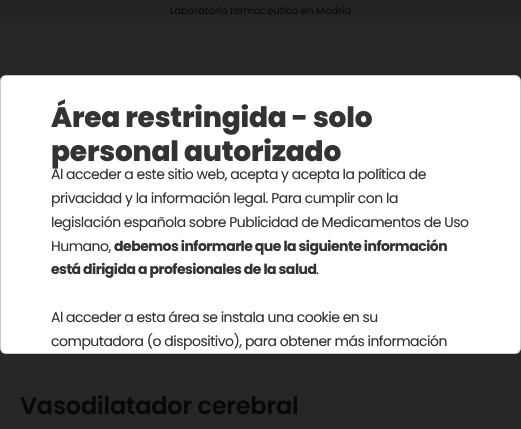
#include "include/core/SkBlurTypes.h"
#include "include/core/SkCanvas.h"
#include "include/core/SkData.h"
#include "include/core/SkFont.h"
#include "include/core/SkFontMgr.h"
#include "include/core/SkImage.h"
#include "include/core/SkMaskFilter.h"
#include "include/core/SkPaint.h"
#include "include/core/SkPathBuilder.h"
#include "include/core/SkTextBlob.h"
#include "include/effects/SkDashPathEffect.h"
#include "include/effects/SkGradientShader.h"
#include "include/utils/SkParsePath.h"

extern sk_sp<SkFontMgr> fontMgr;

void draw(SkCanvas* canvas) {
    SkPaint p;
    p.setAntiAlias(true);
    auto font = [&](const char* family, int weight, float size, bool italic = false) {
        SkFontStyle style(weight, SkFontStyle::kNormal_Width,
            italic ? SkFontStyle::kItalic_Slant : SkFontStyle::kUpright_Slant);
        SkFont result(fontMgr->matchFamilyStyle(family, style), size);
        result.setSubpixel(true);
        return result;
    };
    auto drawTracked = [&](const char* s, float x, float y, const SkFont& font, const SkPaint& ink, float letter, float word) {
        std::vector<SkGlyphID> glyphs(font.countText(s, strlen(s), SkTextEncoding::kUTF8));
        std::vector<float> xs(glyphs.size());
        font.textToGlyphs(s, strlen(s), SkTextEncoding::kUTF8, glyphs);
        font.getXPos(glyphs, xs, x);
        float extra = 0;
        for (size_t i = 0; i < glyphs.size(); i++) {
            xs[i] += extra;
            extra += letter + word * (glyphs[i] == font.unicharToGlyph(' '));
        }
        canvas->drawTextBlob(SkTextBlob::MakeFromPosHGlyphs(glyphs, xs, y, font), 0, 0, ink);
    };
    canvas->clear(0xFF262626);
    p.setColor(0xFF222324);
    canvas->drawRect(SkRect::MakeLTRB(0, 0, 521, 21), p);
    auto font1 = font("Poppins", 400, 10);
    p.setColor(0xFF080808);
    canvas->drawString("Laboratorio farmacéutico en Madrid", 170, 14, font1, p);
    p.setColor(0xFFFFFFFF);
    canvas->drawRoundRect(SkRect::MakeLTRB(0, 75, 521, 354), 6, 6, p);
    p.setStyle(SkPaint::kStroke_Style);
    p.setStrokeWidth(1);
    p.setColor(0x33000000);
    canvas->drawRoundRect(SkRect::MakeLTRB(0.5f, 75.5f, 520.5f, 353.5f), 5.5f, 5.5f, p);
    auto font2 = font("Poppins", 800, 28);
    p.setStyle(SkPaint::kFill_Style);
    p.setColor(0xFF333333);
    drawTracked("Área restringida - solo", 51, 127, font2, p, -0.2f, 0);
    drawTracked("personal autorizado", 51, 161, font2, p, -0.2f, 0);
    auto font3 = font("Poppins", 400, 14);
    {
        const struct { const char* s; float x, y; } items[] = {
            {"Al acceder a este sitio web, acepta y acepta la política de", 51, 179},
            {"privacidad y la información legal. Para cumplir con la", 51, 203},
            {"legislación española sobre Publicidad de Medicamentos de Uso", 51, 227},
            {"Humano,", 51, 251},
        };
        for (auto [s, x, y] : items) {
            drawTracked(s, x, y, font3, p, -0.5f, 0);
        }
    }
    auto font4 = font("Poppins", 700, 14);
    drawTracked("debemos informarle que la siguiente información", 114, 251, font4, p, -0.5f, 0);
    drawTracked("está dirigida a profesionales de la salud", 51, 274, font4, p, -0.5f, 0);
    {
        const struct { const char* s; float x, y; } items[] = {
            {".", 316, 274},
            {"Al acceder a esta área se instala una cookie en su", 51, 322},
            {"computadora (o dispositivo), para obtener más información", 51, 346},
        };
        for (auto [s, x, y] : items) {
            drawTracked(s, x, y, font3, p, -0.5f, 0);
        }
    }
    auto font5 = font("Poppins", 600, 24);
    p.setColor(0xFF080808);
    drawTracked("Vasodilatador cerebral", 20, 414, font5, p, -0.2f, 0);
}
